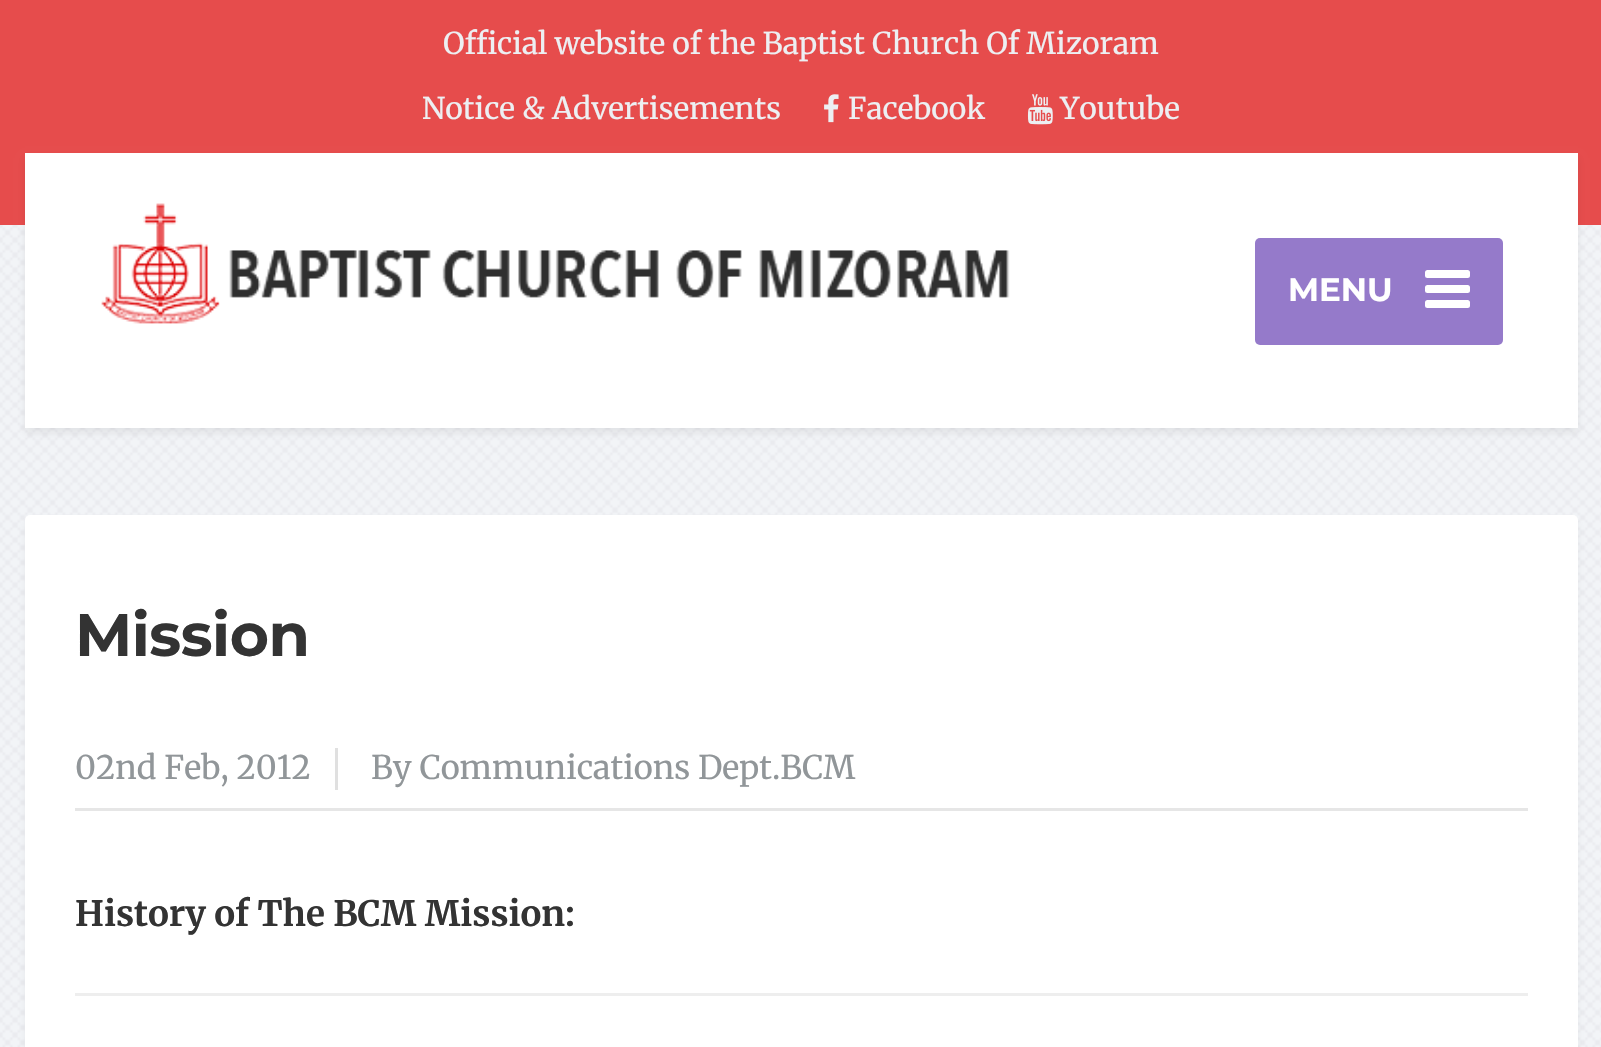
#include "include/core/SkBlurTypes.h"
#include "include/core/SkCanvas.h"
#include "include/core/SkData.h"
#include "include/core/SkFont.h"
#include "include/core/SkFontMgr.h"
#include "include/core/SkImage.h"
#include "include/core/SkMaskFilter.h"
#include "include/core/SkPaint.h"
#include "include/core/SkPathBuilder.h"
#include "include/core/SkTextBlob.h"
#include "include/effects/SkDashPathEffect.h"
#include "include/effects/SkGradientShader.h"
#include "include/utils/SkParsePath.h"

extern sk_sp<SkFontMgr> fontMgr;

void draw(SkCanvas* canvas) {
    SkPaint p;
    p.setAntiAlias(true);
    auto font = [&](const char* family, int weight, float size, bool italic = false) {
        SkFontStyle style(weight, SkFontStyle::kNormal_Width,
            italic ? SkFontStyle::kItalic_Slant : SkFontStyle::kUpright_Slant);
        SkFont result(fontMgr->matchFamilyStyle(family, style), size);
        result.setSubpixel(true);
        return result;
    };
    auto drawTracked = [&](const char* s, float x, float y, const SkFont& font, const SkPaint& ink, float letter, float word) {
        std::vector<SkGlyphID> glyphs(font.countText(s, strlen(s), SkTextEncoding::kUTF8));
        std::vector<float> xs(glyphs.size());
        font.textToGlyphs(s, strlen(s), SkTextEncoding::kUTF8, glyphs);
        font.getXPos(glyphs, xs, x);
        float extra = 0;
        for (size_t i = 0; i < glyphs.size(); i++) {
            xs[i] += extra;
            extra += letter + word * (glyphs[i] == font.unicharToGlyph(' '));
        }
        canvas->drawTextBlob(SkTextBlob::MakeFromPosHGlyphs(glyphs, xs, y, font), 0, 0, ink);
    };
    auto drawPhoto = [&](const char* path, float l, float t, float r, float b) {
        auto image = SkImages::DeferredFromEncodedData(SkData::MakeFromFileName(path));
        canvas->drawImageRect(image, SkRect::MakeLTRB(l, t, r, b), SkSamplingOptions());
    };
    canvas->clear(0xFFF2F4F7);
    drawPhoto("media/1.png", 0, 225, 1601, 1047);
    p.setColor(0xFFE64C4C);
    canvas->drawRect(SkRect::MakeLTRB(0, 0, 1601, 225), p);
    auto font1 = font("Merriweather", 400, 30);
    p.setColor(0xFFEDEFF2);
    canvas->drawString("Official website of the Baptist Church Of Mizoram", 443, 54, font1, p);
    canvas->drawString("Notice & Advertisements", 422, 119, font1, p);
    drawPhoto("media/2.png", 824, 94, 839, 123);
    canvas->drawString("Facebook", 848, 119, font1, p);
    drawPhoto("media/3.png", 1027, 94, 1053, 125);
    canvas->drawString("Youtube", 1060, 119, font1, p);
    p.setColor(0x141F1F1F);
    p.setMaskFilter(SkMaskFilter::MakeBlur(kNormal_SkBlurStyle, 4));
    canvas->drawRect(SkRect::MakeLTRB(25, 158, 1578, 433), p);
    p.setMaskFilter(nullptr);
    p.setColor(0xFFFFFFFF);
    canvas->drawRect(SkRect::MakeLTRB(25, 153, 1578, 428), p);
    drawPhoto("media/4.png", 101, 203, 1010, 324);
    p.setColor(0xFF957ACA);
    canvas->drawRoundRect(SkRect::MakeLTRB(1255, 238, 1503, 345), 5, 5, p);
    auto font2 = font("Montserrat", 700, 32.5f);
    p.setColor(0xFFFFFFFF);
    canvas->drawString("MENU", 1288, 301, font2, p);
    canvas->drawRoundRect(SkRect::MakeLTRB(1425, 270, 1470, 278), 2.5f, 2.5f, p);
    canvas->drawRoundRect(SkRect::MakeLTRB(1425, 285, 1470, 293), 2.5f, 2.5f, p);
    canvas->drawRoundRect(SkRect::MakeLTRB(1425, 300, 1470, 308), 2.5f, 2.5f, p);
    p.setColor(0x0D1F1F1F);
    p.setMaskFilter(SkMaskFilter::MakeBlur(kNormal_SkBlurStyle, 4));
    canvas->drawRoundRect(SkRect::MakeLTRB(25, 520, 1578, 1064), 5, 5, p);
    p.setMaskFilter(nullptr);
    p.setColor(0xFFFFFFFF);
    canvas->drawRoundRect(SkRect::MakeLTRB(25, 515, 1578, 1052), 5, 5, p);
    p.setColor(0xFFE6E6E6);
    canvas->drawRect(SkRect::MakeLTRB(75, 808, 1528, 811), p);
    auto font3 = font("Montserrat", 700, 60);
    p.setColor(0xFF333333);
    drawTracked("Mission", 75, 656, font3, p, -0.5f, 0);
    auto font4 = font("Merriweather", 400, 32.5f);
    p.setColor(0xFF919699);
    canvas->drawString("02nd Feb, 2012", 75, 779, font4, p);
    p.setColor(0xFFE0E0E0);
    canvas->drawRect(SkRect::MakeLTRB(335, 748, 338, 790), p);
    p.setColor(0xFF919699);
    canvas->drawString("By Communications Dept.BCM", 371, 779, font4, p);
    auto font5 = font("Merriweather", 700, 35);
    p.setColor(0xFF333333);
    canvas->drawString("History of The BCM Mission:", 75, 926, font5, p);
    p.setColor(0xFFEEEEEE);
    canvas->drawRect(SkRect::MakeLTRB(75, 993, 1528, 996), p);
}
